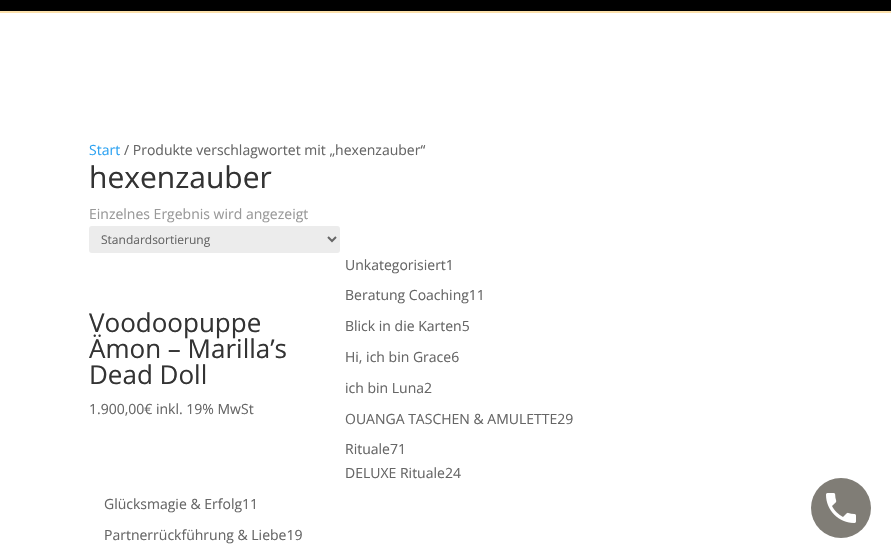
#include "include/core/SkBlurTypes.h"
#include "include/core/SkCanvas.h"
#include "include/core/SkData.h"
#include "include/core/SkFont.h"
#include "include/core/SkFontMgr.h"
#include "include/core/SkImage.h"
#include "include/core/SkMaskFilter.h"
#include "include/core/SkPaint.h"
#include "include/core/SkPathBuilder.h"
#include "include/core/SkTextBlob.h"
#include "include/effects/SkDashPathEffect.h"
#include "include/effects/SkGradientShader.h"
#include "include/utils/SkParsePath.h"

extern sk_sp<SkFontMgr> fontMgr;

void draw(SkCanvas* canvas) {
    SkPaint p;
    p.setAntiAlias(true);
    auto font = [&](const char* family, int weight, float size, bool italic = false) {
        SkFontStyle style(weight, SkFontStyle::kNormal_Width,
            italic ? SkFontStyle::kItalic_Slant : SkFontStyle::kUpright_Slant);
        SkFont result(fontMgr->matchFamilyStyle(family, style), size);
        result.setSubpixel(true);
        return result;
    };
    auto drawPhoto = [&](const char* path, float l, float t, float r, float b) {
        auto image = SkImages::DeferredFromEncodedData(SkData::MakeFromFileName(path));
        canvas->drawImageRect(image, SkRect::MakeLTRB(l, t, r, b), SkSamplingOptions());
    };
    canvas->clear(0xFFFFFFFF);
    p.setColor(0xFF000000);
    canvas->drawRect(SkRect::MakeLTRB(0, 0, 891, 11), p);
    p.setColor(0xFFFBE0AB);
    canvas->drawRect(SkRect::MakeLTRB(0, 11, 891, 13), p);
    auto font1 = font("Open Sans", 400, 14);
    p.setColor(0xFF2EA3F2);
    canvas->drawString("Start", 89, 155, font1, p);
    p.setColor(0xFF666666);
    canvas->drawString("/ Produkte verschlagwortet mit „hexenzauber“", 124, 155, font1, p);
    auto font2 = font("Open Sans", 400, 30);
    p.setColor(0xFF333333);
    canvas->drawString("hexenzauber", 89, 188, font2, p);
    p.setColor(0xFF999999);
    canvas->drawString("Einzelnes Ergebnis wird angezeigt", 89, 219, font1, p);
    p.setColor(0xFFECECEC);
    canvas->drawRoundRect(SkRect::MakeLTRB(89, 226, 340, 253), 3, 3, p);
    p.setStyle(SkPaint::kStroke_Style);
    p.setStrokeWidth(2);
    p.setColor(0xFF666666);
    canvas->drawPath(SkPathBuilder().moveTo(328, 237).lineTo(332, 241).lineTo(336, 237).detach(), p);
    auto font3 = font("Open Sans", 400, 12);
    p.setStyle(SkPaint::kFill_Style);
    canvas->drawString("Standardsortierung", 101, 244, font3, p);
    auto font4 = font("Open Sans", 400, 26);
    p.setColor(0xFF333333);
    {
        const struct { const char* s; float x, y; } items[] = {
            {"Voodoopuppe", 89, 332},
            {"Ämon – Marilla’s", 89, 358},
            {"Dead Doll", 89, 384},
        };
        for (auto [s, x, y] : items) {
            canvas->drawString(s, x, y, font4, p);
        }
    }
    p.setColor(0xFF666666);
    {
        const struct { const char* s; float x, y; } items[] = {
            {"1.900,00€ inkl. 19% MwSt", 89, 414},
            {"Unkategorisiert1", 345, 270},
            {"Beratung Coaching11", 345, 300},
            {"Blick in die Karten5", 345, 331},
            {"Hi, ich bin Grace6", 345, 362},
            {"ich bin Luna2", 345, 393},
            {"OUANGA TASCHEN & AMULETTE29", 345, 424},
            {"Rituale71", 345, 454},
            {"DELUXE Rituale24", 345, 478},
            {"Glücksmagie & Erfolg11", 104, 509},
            {"Partnerrückführung & Liebe19", 104, 540},
        };
        for (auto [s, x, y] : items) {
            canvas->drawString(s, x, y, font1, p);
        }
    }
    p.setColor(0xFF807D76);
    canvas->drawCircle(841, 508, 30, p);
    drawPhoto("media/1.png", 826, 493, 856, 523);
}
